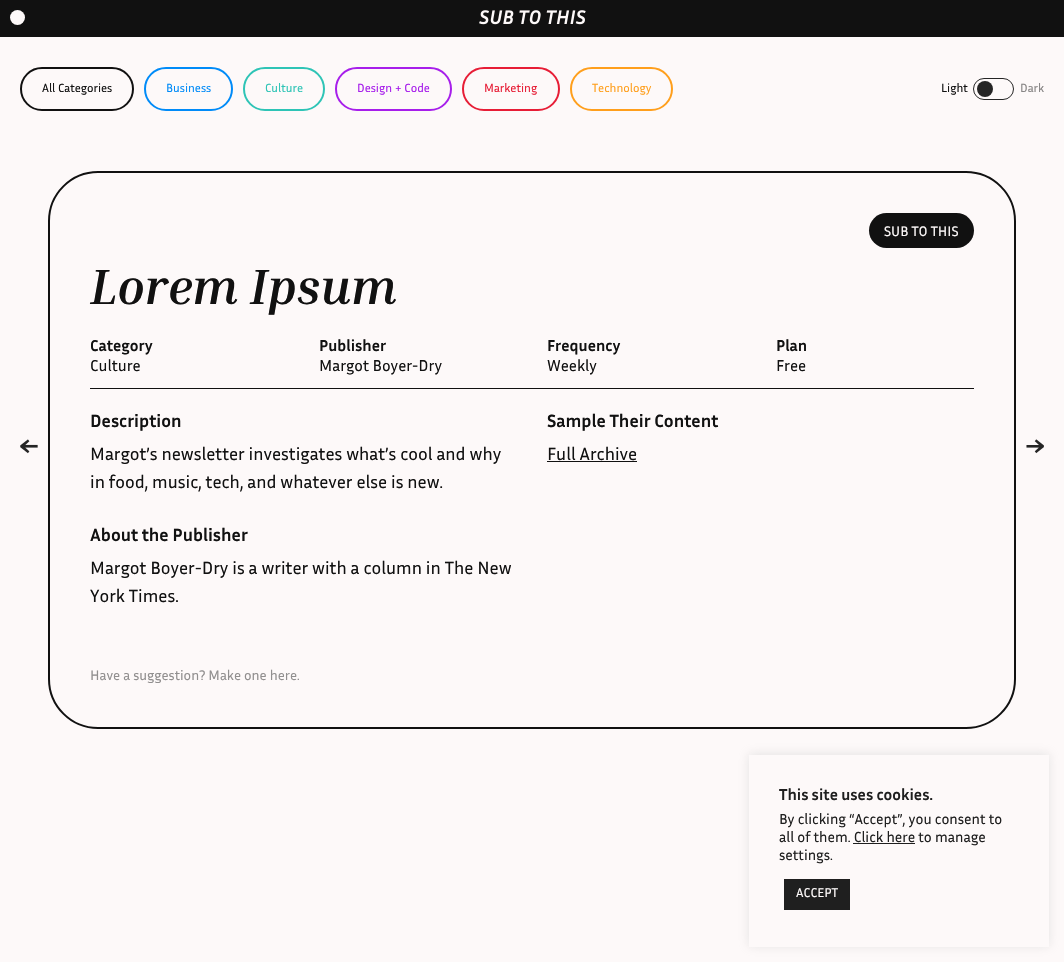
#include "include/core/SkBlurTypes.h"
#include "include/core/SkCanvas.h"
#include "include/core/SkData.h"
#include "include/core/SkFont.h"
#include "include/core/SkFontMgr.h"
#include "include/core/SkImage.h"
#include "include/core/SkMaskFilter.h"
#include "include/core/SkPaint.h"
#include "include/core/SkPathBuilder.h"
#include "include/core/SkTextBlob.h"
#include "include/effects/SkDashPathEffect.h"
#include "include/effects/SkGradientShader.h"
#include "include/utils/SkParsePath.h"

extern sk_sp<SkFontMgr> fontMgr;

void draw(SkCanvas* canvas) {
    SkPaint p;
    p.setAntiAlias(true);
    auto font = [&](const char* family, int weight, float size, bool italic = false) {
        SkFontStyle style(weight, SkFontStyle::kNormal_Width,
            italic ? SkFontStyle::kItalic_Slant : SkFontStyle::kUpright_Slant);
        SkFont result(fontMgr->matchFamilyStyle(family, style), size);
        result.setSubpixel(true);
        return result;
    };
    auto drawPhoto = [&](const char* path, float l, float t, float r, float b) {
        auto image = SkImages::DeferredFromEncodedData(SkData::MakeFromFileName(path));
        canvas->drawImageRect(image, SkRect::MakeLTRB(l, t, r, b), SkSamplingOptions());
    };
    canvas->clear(0xFFFDF9F9);
    p.setColor(0xFF111111);
    canvas->drawRect(SkRect::MakeLTRB(0, 0, 1064, 37), p);
    p.setColor(0xFFFDF9F9);
    canvas->drawCircle(17.5f, 17.5f, 7.5f, p);
    drawPhoto("media/1.png", 479, 10, 586, 25);
    p.setStyle(SkPaint::kStroke_Style);
    p.setStrokeWidth(2);
    p.setColor(0xFF111111);
    canvas->drawRoundRect(SkRect::MakeLTRB(21, 68, 133, 110), 21, 21, p);
    auto font1 = font("Inria Sans", 400, 12);
    p.setStyle(SkPaint::kFill_Style);
    canvas->drawString("All Categories", 42, 92, font1, p);
    p.setStyle(SkPaint::kStroke_Style);
    p.setColor(0xFF008BF8);
    canvas->drawRoundRect(SkRect::MakeLTRB(145, 68, 232, 110), 21, 21, p);
    p.setStyle(SkPaint::kFill_Style);
    canvas->drawString("Business", 166, 92, font1, p);
    p.setStyle(SkPaint::kStroke_Style);
    p.setColor(0xFF2EC4B6);
    canvas->drawRoundRect(SkRect::MakeLTRB(244, 68, 324, 110), 21, 21, p);
    p.setStyle(SkPaint::kFill_Style);
    canvas->drawString("Culture", 265, 92, font1, p);
    p.setStyle(SkPaint::kStroke_Style);
    p.setColor(0xFFA71EEB);
    canvas->drawRoundRect(SkRect::MakeLTRB(336, 68, 451, 110), 21, 21, p);
    p.setStyle(SkPaint::kFill_Style);
    canvas->drawString("Design + Code", 357, 92, font1, p);
    p.setStyle(SkPaint::kStroke_Style);
    p.setColor(0xFFE71D36);
    canvas->drawRoundRect(SkRect::MakeLTRB(463, 68, 559, 110), 21, 21, p);
    p.setStyle(SkPaint::kFill_Style);
    canvas->drawString("Marketing", 484, 92, font1, p);
    p.setStyle(SkPaint::kStroke_Style);
    p.setColor(0xFFFF9F1C);
    canvas->drawRoundRect(SkRect::MakeLTRB(571, 68, 672, 110), 21, 21, p);
    p.setStyle(SkPaint::kFill_Style);
    canvas->drawString("Technology", 592, 92, font1, p);
    p.setColor(0xFF111111);
    canvas->drawString("Light", 941, 92, font1, p);
    p.setStyle(SkPaint::kStroke_Style);
    p.setStrokeWidth(1);
    p.setColor(0xFF252525);
    canvas->drawRoundRect(SkRect::MakeLTRB(973.5f, 78.5f, 1013.5f, 99.5f), 10.5f, 10.5f, p);
    p.setStyle(SkPaint::kFill_Style);
    canvas->drawCircle(985, 89, 8, p);
    p.setColor(0xFF878585);
    canvas->drawString("Dark", 1020, 92, font1, p);
    drawPhoto("media/2.png", 20, 439, 38, 454);
    p.setStyle(SkPaint::kStroke_Style);
    p.setStrokeWidth(2);
    p.setColor(0xFF111111);
    canvas->drawRoundRect(SkRect::MakeLTRB(49, 172, 1015, 728), 49, 49, p);
    p.setStyle(SkPaint::kFill_Style);
    canvas->drawRoundRect(SkRect::MakeLTRB(869, 213, 974, 248), 17.5f, 17.5f, p);
    auto font2 = font("Inria Sans", 400, 14);
    p.setColor(0xFFFDF9F9);
    canvas->drawString("SUB TO THIS", 884, 236, font2, p);
    auto font3 = font("Inria Serif", 700, 50, true);
    p.setColor(0xFF111111);
    canvas->drawString("Lorem Ipsum", 90, 304, font3, p);
    canvas->drawRect(SkRect::MakeLTRB(90, 388, 974, 389), p);
    auto font4 = font("Inria Sans", 700, 16);
    {
        const struct { const char* s; float x, y; } items[] = {
            {"Category", 90, 351},
            {"Publisher", 319, 351},
            {"Frequency", 547, 351},
            {"Plan", 776, 351},
        };
        for (auto [s, x, y] : items) {
            canvas->drawString(s, x, y, font4, p);
        }
    }
    auto font5 = font("Inria Sans", 400, 16);
    {
        const struct { const char* s; float x, y; } items[] = {
            {"Culture", 90, 371},
            {"Margot Boyer-Dry", 319, 371},
            {"Weekly", 547, 371},
            {"Free", 776, 371},
        };
        for (auto [s, x, y] : items) {
            canvas->drawString(s, x, y, font5, p);
        }
    }
    auto font6 = font("Inria Sans", 700, 18);
    canvas->drawString("Description", 90, 427, font6, p);
    auto font7 = font("Inria Sans", 400, 18);
    canvas->drawString("Margot’s newsletter investigates what’s cool and why", 90, 460, font7, p);
    canvas->drawString("in food, music, tech, and whatever else is new.", 90, 488, font7, p);
    canvas->drawString("About the Publisher", 90, 541, font6, p);
    canvas->drawString("Margot Boyer-Dry is a writer with a column in The New", 90, 574, font7, p);
    canvas->drawString("York Times.", 90, 602, font7, p);
    canvas->drawString("Sample Their Content", 547, 427, font6, p);
    canvas->drawString("Full Archive", 547, 460, font7, p);
    canvas->drawRect(SkRect::MakeLTRB(547, 461, 637, 462), p);
    p.setColor(0xFF918F8F);
    canvas->drawString("Have a suggestion? Make one here.", 90, 680, font2, p);
    drawPhoto("media/3.png", 1026, 439, 1044, 454);
    canvas->save();
    canvas->clipPath(SkPathBuilder(SkPathFillType::kEvenOdd).moveTo(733, 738).lineTo(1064, 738).lineTo(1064, 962).lineTo(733, 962).close().moveTo(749, 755).lineTo(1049, 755).lineTo(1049, 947).lineTo(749, 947).close().detach(), true);
    p.setColor(0x4DACABAB);
    p.setMaskFilter(SkMaskFilter::MakeBlur(kNormal_SkBlurStyle, 5));
    canvas->drawRect(SkRect::MakeLTRB(749, 754, 1049, 946), p);
    p.setMaskFilter(nullptr);
    canvas->restore();
    p.setColor(0xFF1F1F1F);
    canvas->drawString("This site uses cookies.", 779, 800, font4, p);
    auto font8 = font("Inria Sans", 400, 14.7f);
    canvas->drawString("By clicking “Accept”, you consent to", 779, 824, font8, p);
    canvas->drawString("all of them. Click here to manage", 779, 842, font8, p);
    canvas->drawRect(SkRect::MakeLTRB(853, 843, 915, 844), p);
    canvas->drawString("settings.", 779, 860, font8, p);
    canvas->drawRect(SkRect::MakeLTRB(784, 879, 850, 910), p);
    auto font9 = font("Inria Sans", 400, 13);
    p.setColor(0xFFFDF9F9);
    canvas->drawString("ACCEPT", 796, 897, font9, p);
}
